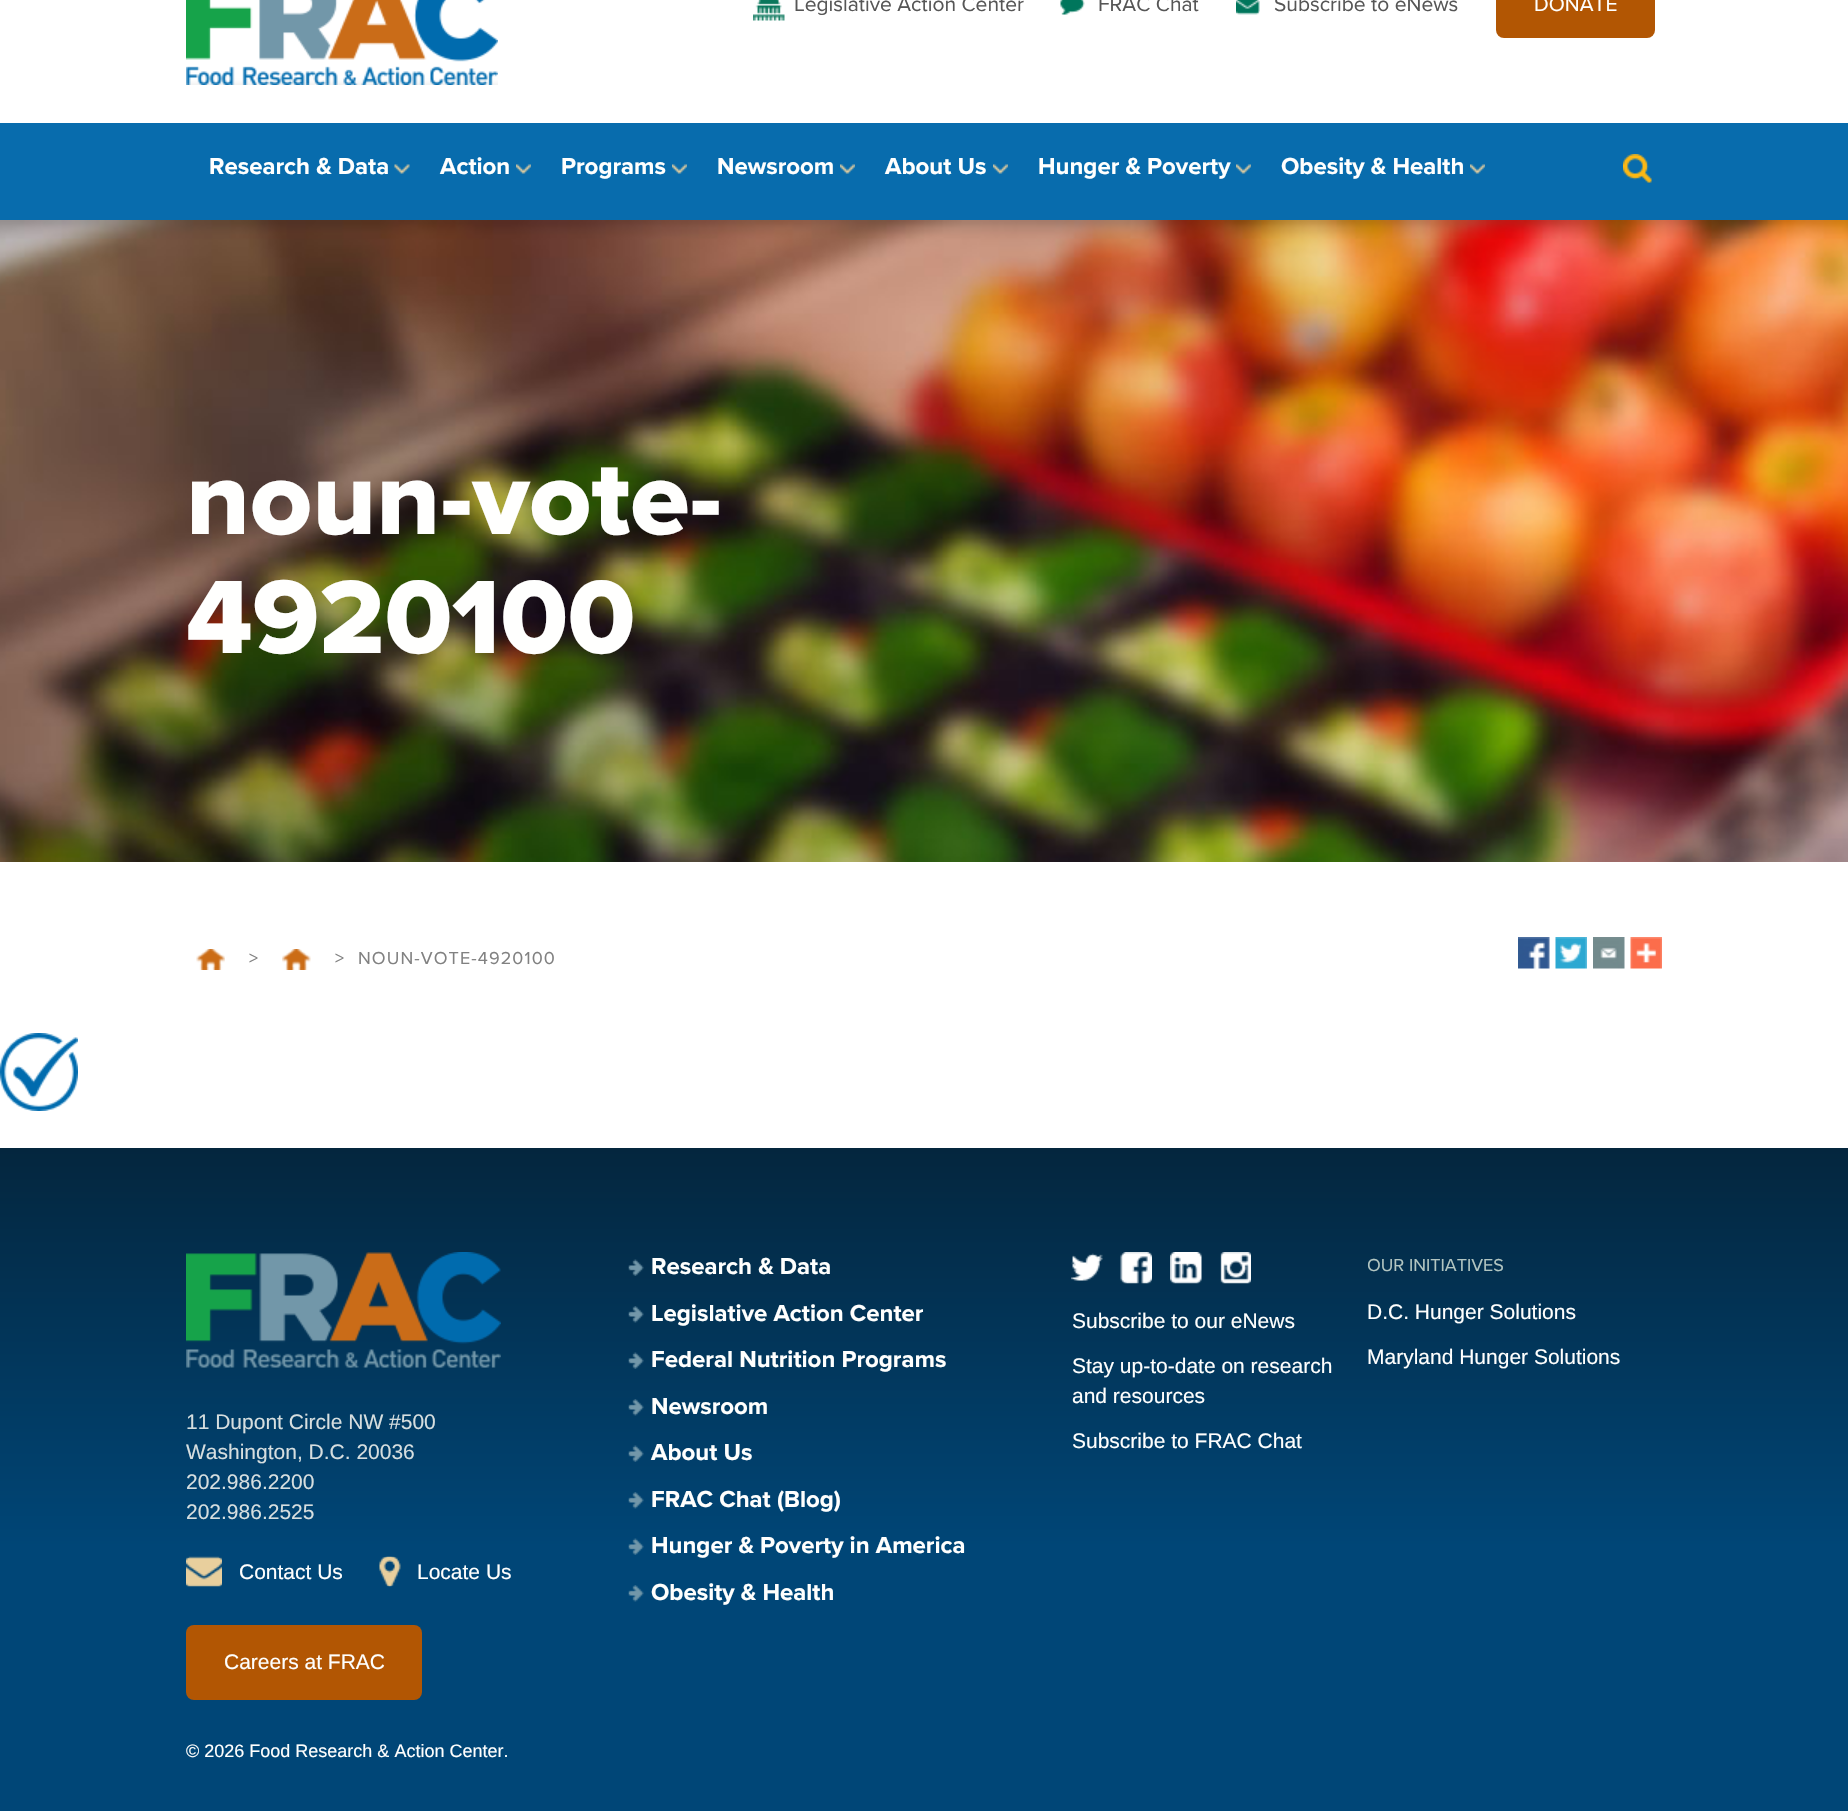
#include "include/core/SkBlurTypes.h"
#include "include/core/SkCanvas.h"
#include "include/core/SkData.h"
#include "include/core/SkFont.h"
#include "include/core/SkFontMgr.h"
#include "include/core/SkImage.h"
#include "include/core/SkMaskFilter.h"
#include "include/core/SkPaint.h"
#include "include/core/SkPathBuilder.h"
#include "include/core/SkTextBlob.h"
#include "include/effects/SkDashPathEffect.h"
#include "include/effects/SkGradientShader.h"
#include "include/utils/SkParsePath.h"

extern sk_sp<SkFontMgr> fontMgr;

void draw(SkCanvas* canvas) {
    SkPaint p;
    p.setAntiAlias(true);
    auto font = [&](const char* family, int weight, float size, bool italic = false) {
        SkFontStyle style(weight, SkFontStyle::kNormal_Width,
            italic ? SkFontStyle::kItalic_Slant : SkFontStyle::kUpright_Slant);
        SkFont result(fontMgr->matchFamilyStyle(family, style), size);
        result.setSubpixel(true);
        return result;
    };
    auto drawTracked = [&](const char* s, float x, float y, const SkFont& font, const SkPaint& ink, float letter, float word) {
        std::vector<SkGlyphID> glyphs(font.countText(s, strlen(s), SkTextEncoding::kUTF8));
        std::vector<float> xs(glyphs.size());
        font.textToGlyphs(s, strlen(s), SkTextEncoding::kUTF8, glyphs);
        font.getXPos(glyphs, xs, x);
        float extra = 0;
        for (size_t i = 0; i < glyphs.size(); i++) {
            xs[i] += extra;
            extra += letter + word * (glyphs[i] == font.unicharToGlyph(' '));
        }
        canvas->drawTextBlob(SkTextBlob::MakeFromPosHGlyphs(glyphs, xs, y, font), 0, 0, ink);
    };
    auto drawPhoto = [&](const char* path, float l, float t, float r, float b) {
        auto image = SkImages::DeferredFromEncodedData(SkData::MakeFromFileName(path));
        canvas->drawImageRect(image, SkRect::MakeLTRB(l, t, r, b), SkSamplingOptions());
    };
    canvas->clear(0xFFFFFFFF);
    drawPhoto("media/1.png", 186, 0, 498, 85);
    drawPhoto("media/2.png", 753, 0, 785, 21);
    auto font1 = font("Proxima Nova", 400, 21);
    p.setColor(0xFF565656);
    canvas->drawString("Legislative Action Center", 794, 11, font1, p);
    drawPhoto("media/3.png", 1060, 0, 1085, 15);
    canvas->drawString("FRAC Chat", 1098, 11, font1, p);
    drawPhoto("media/4.png", 1236, 0, 1260, 15);
    canvas->drawString("Subscribe to eNews", 1274, 11, font1, p);
    p.setColor(0xFFB25603);
    canvas->drawRoundRect(SkRect::MakeLTRB(1496, -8, 1655, 38), 8, 8, p);
    p.setColor(0xFFFFFFFE);
    canvas->drawString("DONATE", 1534, 11, font1, p);
    p.setColor(0xFF086CAD);
    canvas->drawRect(SkRect::MakeLTRB(0, 123, 1848, 220), p);
    drawPhoto("media/5.png", 394, 164, 410, 174);
    auto font2 = font("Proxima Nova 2", 400, 24);
    p.setColor(0xFFFFFFFE);
    canvas->drawString("Research & Data", 209, 174, font2, p);
    drawPhoto("media/6.png", 516, 164, 531, 174);
    canvas->drawString("Action", 440, 174, font2, p);
    drawPhoto("media/6.png", 672, 164, 687, 174);
    canvas->drawString("Programs", 561, 174, font2, p);
    drawPhoto("media/6.png", 840, 164, 855, 174);
    canvas->drawString("Newsroom", 717, 174, font2, p);
    drawPhoto("media/6.png", 993, 164, 1008, 174);
    canvas->drawString("About Us", 885, 174, font2, p);
    drawPhoto("media/7.png", 1236, 164, 1251, 174);
    canvas->drawString("Hunger & Poverty", 1038, 174, font2, p);
    drawPhoto("media/7.png", 1470, 164, 1485, 174);
    canvas->drawString("Obesity & Health", 1281, 174, font2, p);
    drawPhoto("media/8.png", 1623, 154, 1652, 183);
    drawPhoto("media/9.png", 0, 220, 1848, 862);
    auto font3 = font("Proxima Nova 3", 400, 108);
    canvas->drawString("noun-vote-", 186, 534, font3, p);
    canvas->drawString("4920100", 186, 653, font3, p);
    drawPhoto("media/10.png", 196, 949, 225, 970);
    auto font4 = font("Proxima Nova", 400, 18);
    p.setColor(0xFF818181);
    drawTracked(">", 249, 964, font4, p, 1.1f, 0);
    drawPhoto("media/11.png", 282, 949, 311, 970);
    drawTracked(">", 335, 964, font4, p, 1.1f, 0);
    drawTracked("NOUN-VOTE-4920100", 358, 964, font4, p, 1.1f, 0);
    drawPhoto("media/12.png", 1518, 937, 1550, 969);
    drawPhoto("media/13.png", 1555, 937, 1587, 969);
    drawPhoto("media/14.png", 1593, 937, 1625, 969);
    drawPhoto("media/15.png", 1630, 937, 1662, 969);
    drawPhoto("media/16.png", 0, 1033, 78, 1111);
    {
        const SkColor colors[] = {0xFF04263E, 0xFF004677, 0xFF004677};
        const float stops[] = {0, 0.5f, 1};
        const SkPoint ends[] = {{924, 1148}, {924, 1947}};
        p.setShader(SkGradientShader::MakeLinear(ends, colors, stops, 3, SkTileMode::kClamp));
        p.setAlpha(255);
    }
    canvas->drawRect(SkRect::MakeLTRB(0, 1148, 1848, 1811), p);
    drawPhoto("media/17.png", 628, 1259, 644, 1276);
    p.setShader(nullptr);
    p.setColor(0xFFFFFFFE);
    canvas->drawString("Research & Data", 651, 1274, font2, p);
    drawPhoto("media/18.png", 628, 1306, 644, 1323);
    canvas->drawString("Legislative Action Center", 651, 1321, font2, p);
    drawPhoto("media/19.png", 628, 1352, 644, 1369);
    canvas->drawString("Federal Nutrition Programs", 651, 1367, font2, p);
    drawPhoto("media/20.png", 628, 1399, 644, 1416);
    canvas->drawString("Newsroom", 651, 1414, font2, p);
    drawPhoto("media/21.png", 628, 1445, 644, 1462);
    canvas->drawString("About Us", 651, 1460, font2, p);
    drawPhoto("media/22.png", 628, 1492, 644, 1509);
    canvas->drawString("FRAC Chat (Blog)", 651, 1507, font2, p);
    drawPhoto("media/23.png", 628, 1538, 644, 1555);
    canvas->drawString("Hunger & Poverty in America", 651, 1553, font2, p);
    drawPhoto("media/24.png", 628, 1585, 644, 1602);
    canvas->drawString("Obesity & Health", 651, 1600, font2, p);
    drawPhoto("media/25.png", 1071, 1253, 1103, 1281);
    drawPhoto("media/26.png", 1120, 1252, 1152, 1284);
    drawPhoto("media/27.png", 1170, 1252, 1202, 1284);
    drawPhoto("media/28.png", 1220, 1252, 1251, 1284);
    auto font5 = font("Liberation Sans", 400, 21);
    {
        const struct { const char* s; float x, y; } items[] = {
            {"Subscribe to our eNews", 1072, 1328},
            {"Stay up-to-date on research", 1072, 1373},
            {"and resources", 1072, 1403},
            {"Subscribe to FRAC Chat", 1072, 1448},
        };
        for (auto [s, x, y] : items) {
            canvas->drawString(s, x, y, font5, p);
        }
    }
    p.setColor(0xFFB2C5C1);
    canvas->drawString("OUR INITIATIVES", 1367, 1271, font4, p);
    p.setColor(0xFFFFFFFE);
    canvas->drawString("D.C. Hunger Solutions", 1367, 1319, font5, p);
    canvas->drawString("Maryland Hunger Solutions", 1367, 1364, font5, p);
    drawPhoto("media/29.png", 186, 1252, 501, 1368);
    p.setColor(0xFFD6DEDF);
    {
        const struct { const char* s; float x, y; } items[] = {
            {"11 Dupont Circle NW #500", 186, 1429},
            {"Washington, D.C. 20036", 186, 1459},
            {"202.986.2200", 186, 1489},
            {"202.986.2525", 186, 1519},
        };
        for (auto [s, x, y] : items) {
            canvas->drawString(s, x, y, font5, p);
        }
    }
    drawPhoto("media/30.png", 186, 1556, 222, 1587);
    p.setColor(0xFFFFFFFE);
    canvas->drawString("Contact Us", 239, 1579, font5, p);
    drawPhoto("media/31.png", 379, 1556, 401, 1587);
    canvas->drawString("Locate Us", 417, 1579, font5, p);
    p.setColor(0xFFB25603);
    canvas->drawRoundRect(SkRect::MakeLTRB(186, 1625, 422, 1700), 8, 8, p);
    p.setColor(0xFFFFFFFE);
    canvas->drawString("Careers at FRAC", 224, 1669, font5, p);
    auto font6 = font("Liberation Sans", 400, 18);
    canvas->drawString("© 2026 Food Research & Action Center.", 186, 1757, font6, p);
}
